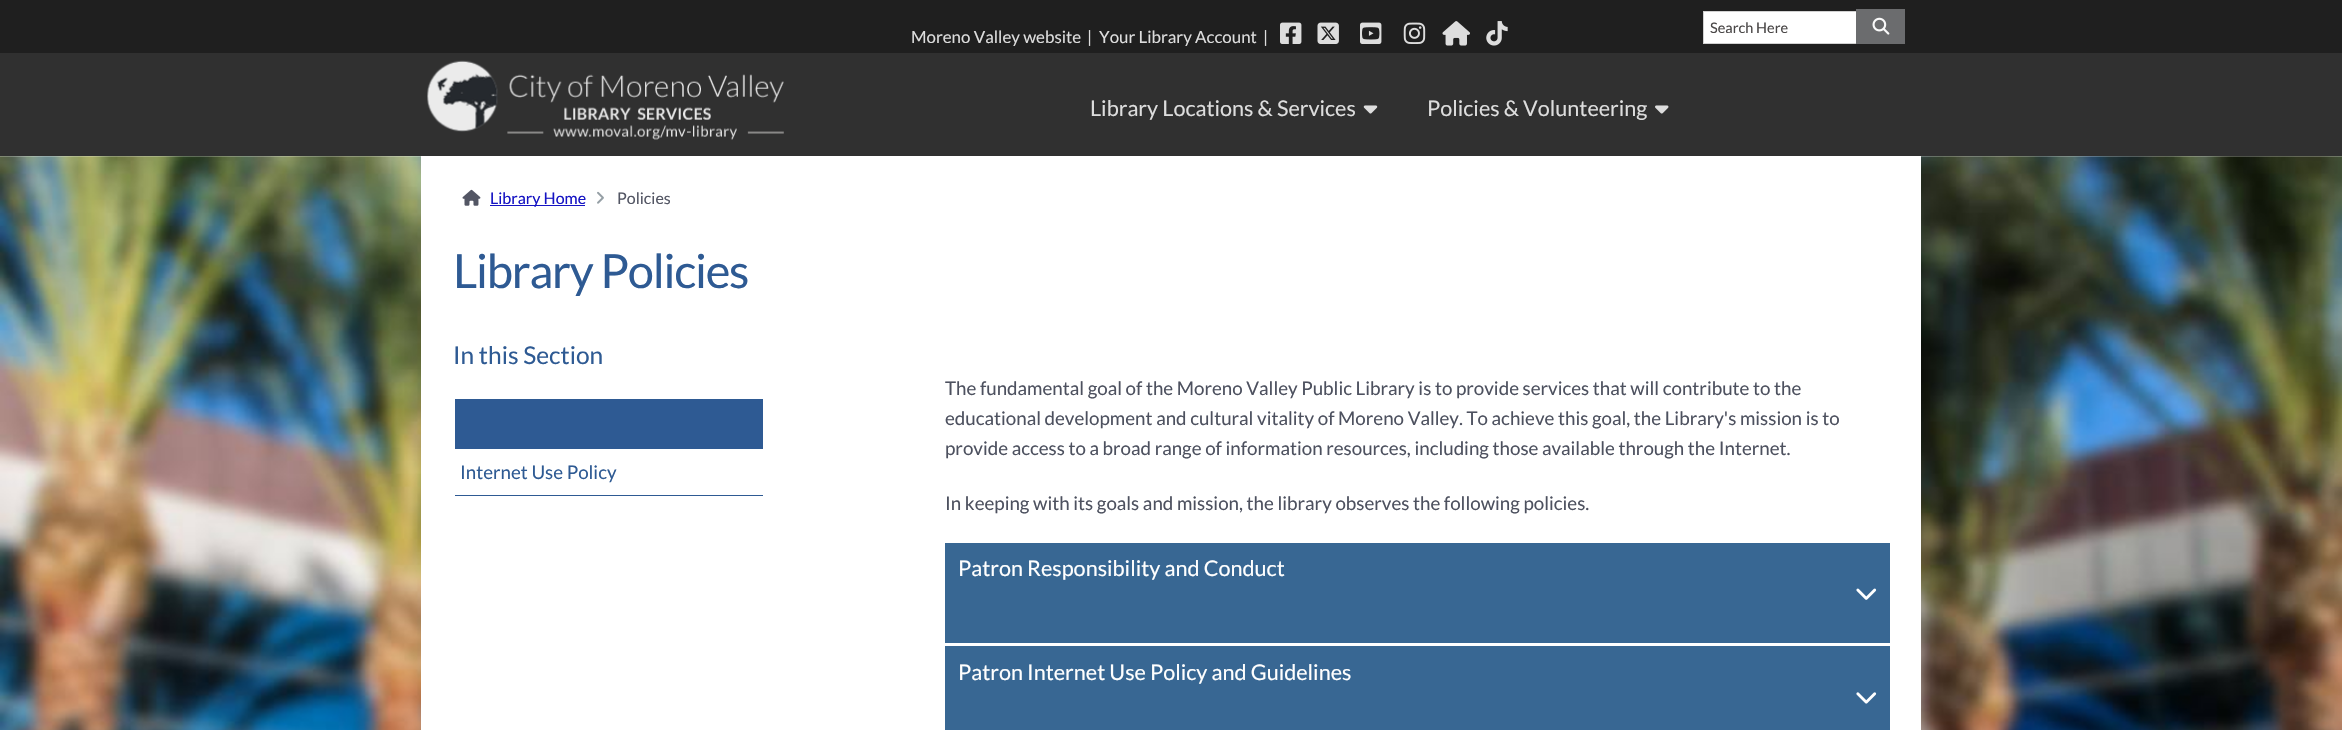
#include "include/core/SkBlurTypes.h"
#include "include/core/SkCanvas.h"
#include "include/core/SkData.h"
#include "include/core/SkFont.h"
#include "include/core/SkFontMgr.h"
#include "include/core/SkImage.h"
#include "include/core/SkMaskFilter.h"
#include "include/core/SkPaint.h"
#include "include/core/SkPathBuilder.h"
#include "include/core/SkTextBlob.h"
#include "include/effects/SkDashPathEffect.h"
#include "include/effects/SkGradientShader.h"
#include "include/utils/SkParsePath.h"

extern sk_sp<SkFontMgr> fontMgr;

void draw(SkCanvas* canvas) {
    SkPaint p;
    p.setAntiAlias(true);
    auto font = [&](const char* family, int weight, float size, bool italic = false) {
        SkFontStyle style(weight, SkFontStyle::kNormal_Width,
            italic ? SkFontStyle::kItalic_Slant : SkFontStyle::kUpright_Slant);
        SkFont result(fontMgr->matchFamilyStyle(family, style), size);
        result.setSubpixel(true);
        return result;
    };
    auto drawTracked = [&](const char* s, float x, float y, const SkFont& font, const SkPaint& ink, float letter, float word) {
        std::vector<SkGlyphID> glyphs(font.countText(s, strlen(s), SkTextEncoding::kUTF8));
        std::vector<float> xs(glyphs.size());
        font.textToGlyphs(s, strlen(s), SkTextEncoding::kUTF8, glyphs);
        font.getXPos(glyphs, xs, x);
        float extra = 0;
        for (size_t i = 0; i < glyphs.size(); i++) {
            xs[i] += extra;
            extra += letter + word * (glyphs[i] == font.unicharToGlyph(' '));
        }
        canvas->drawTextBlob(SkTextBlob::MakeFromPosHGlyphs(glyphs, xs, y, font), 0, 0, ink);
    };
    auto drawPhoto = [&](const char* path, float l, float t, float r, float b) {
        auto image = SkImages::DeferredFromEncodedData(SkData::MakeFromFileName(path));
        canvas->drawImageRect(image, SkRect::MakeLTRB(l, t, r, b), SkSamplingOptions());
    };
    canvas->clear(0xFFFFFFFF);
    p.setColor(0xFF1F1F1F);
    canvas->drawRect(SkRect::MakeLTRB(0, 0, 2342, 53), p);
    p.setColor(0xFFFFFFFF);
    canvas->drawRect(SkRect::MakeLTRB(1704, 12, 1856, 43), p);
    p.setStyle(SkPaint::kStroke_Style);
    p.setStrokeWidth(1);
    p.setColor(0xFFD1D1D1);
    canvas->drawRect(SkRect::MakeLTRB(1703.5f, 11.5f, 1862.5f, 43.5f), p);
    auto font1 = font("Lato", 400, 14.5f);
    p.setStyle(SkPaint::kFill_Style);
    p.setColor(0xFF494646);
    canvas->drawString("Search Here", 1710, 33, font1, p);
    p.setColor(0xFF6B6C6E);
    canvas->drawRect(SkRect::MakeLTRB(1856, 9, 1905, 44), p);
    drawPhoto("media/1.png", 1872, 17, 1890, 35);
    auto font2 = font("Lato", 400, 16.9f);
    p.setColor(0xFFDDDDDD);
    {
        const struct { const char* s; float x, y; } items[] = {
            {"Moreno Valley website", 911, 43},
            {"|", 1087, 43},
            {"Your Library Account", 1099, 43},
            {"|", 1263, 43},
        };
        for (auto [s, x, y] : items) {
            canvas->drawString(s, x, y, font2, p);
        }
    }
    drawPhoto("media/2.png", 1280, 22, 1302, 44);
    drawPhoto("media/3.png", 1317, 22, 1339, 44);
    drawPhoto("media/4.png", 1360, 22, 1382, 44);
    drawPhoto("media/5.png", 1403, 22, 1426, 44);
    drawPhoto("media/6.png", 1442, 21, 1470, 46);
    drawPhoto("media/7.png", 1486, 21, 1508, 46);
    p.setColor(0xFF303030);
    canvas->drawRect(SkRect::MakeLTRB(0, 53, 2342, 156), p);
    drawPhoto("media/8.png", 427, 60, 784, 140);
    auto font3 = font("Lato", 400, 21.6f);
    p.setColor(0xFFDDDDDD);
    canvas->drawString("Library Locations & Services", 1090, 116, font3, p);
    drawPhoto("media/9.png", 1363, 105, 1378, 114);
    canvas->drawString("Policies & Volunteering", 1427, 116, font3, p);
    drawPhoto("media/10.png", 1655, 105, 1669, 114);
    drawPhoto("media/11.png", 0, 156, 2342, 730);
    p.setColor(0xFFFFFFFF);
    canvas->drawRect(SkRect::MakeLTRB(421, 156, 1921, 730), p);
    drawPhoto("media/12.png", 462, 189, 481, 206);
    p.setColor(0xFF1513C3);
    canvas->drawRect(SkRect::MakeLTRB(490, 205, 585, 206), p);
    auto font4 = font("Lato", 400, 16);
    canvas->drawString("Library Home", 490, 204, font4, p);
    drawPhoto("media/13.png", 597, 191, 604, 204);
    p.setColor(0xFF535664);
    canvas->drawString("Policies", 617, 204, font4, p);
    auto font5 = font("Lato", 400, 47);
    p.setColor(0xFF2E5A93);
    drawTracked("Library Policies", 453, 288, font5, p, -1.25f, 0);
    auto font6 = font("Lato", 400, 24.5f);
    canvas->drawString("In this Section", 453, 364, font6, p);
    canvas->drawRect(SkRect::MakeLTRB(455, 399, 763, 449), p);
    canvas->drawRect(SkRect::MakeLTRB(455, 495, 763, 496), p);
    auto font7 = font("Lato", 400, 18.75f);
    canvas->drawString("Internet Use Policy", 460, 479, font7, p);
    p.setColor(0xFF4D515F);
    {
        const struct { const char* s; float x, y; } items[] = {
            {"The fundamental goal of the Moreno Valley Public Library is to provide services that will contribute to the", 945, 395},
            {"educational development and cultural vitality of Moreno Valley. To achieve this goal, the Library's mission is to", 945, 425},
            {"provide access to a broad range of information resources, including those available through the Internet.", 945, 455},
            {"In keeping with its goals and mission, the library observes the following policies.", 945, 510},
        };
        for (auto [s, x, y] : items) {
            canvas->drawString(s, x, y, font7, p);
        }
    }
    p.setColor(0xFF386793);
    canvas->drawRect(SkRect::MakeLTRB(945, 543, 1890, 643), p);
    p.setColor(0xFFFFFFFF);
    canvas->drawString("Patron Responsibility and Conduct", 958, 576, font3, p);
    drawPhoto("media/14.png", 1856, 588, 1877, 600);
    p.setColor(0xFF386793);
    canvas->drawRect(SkRect::MakeLTRB(945, 646, 1890, 730), p);
    p.setColor(0xFFFFFFFF);
    canvas->drawString("Patron Internet Use Policy and Guidelines", 958, 680, font3, p);
    drawPhoto("media/15.png", 1856, 692, 1877, 704);
}
